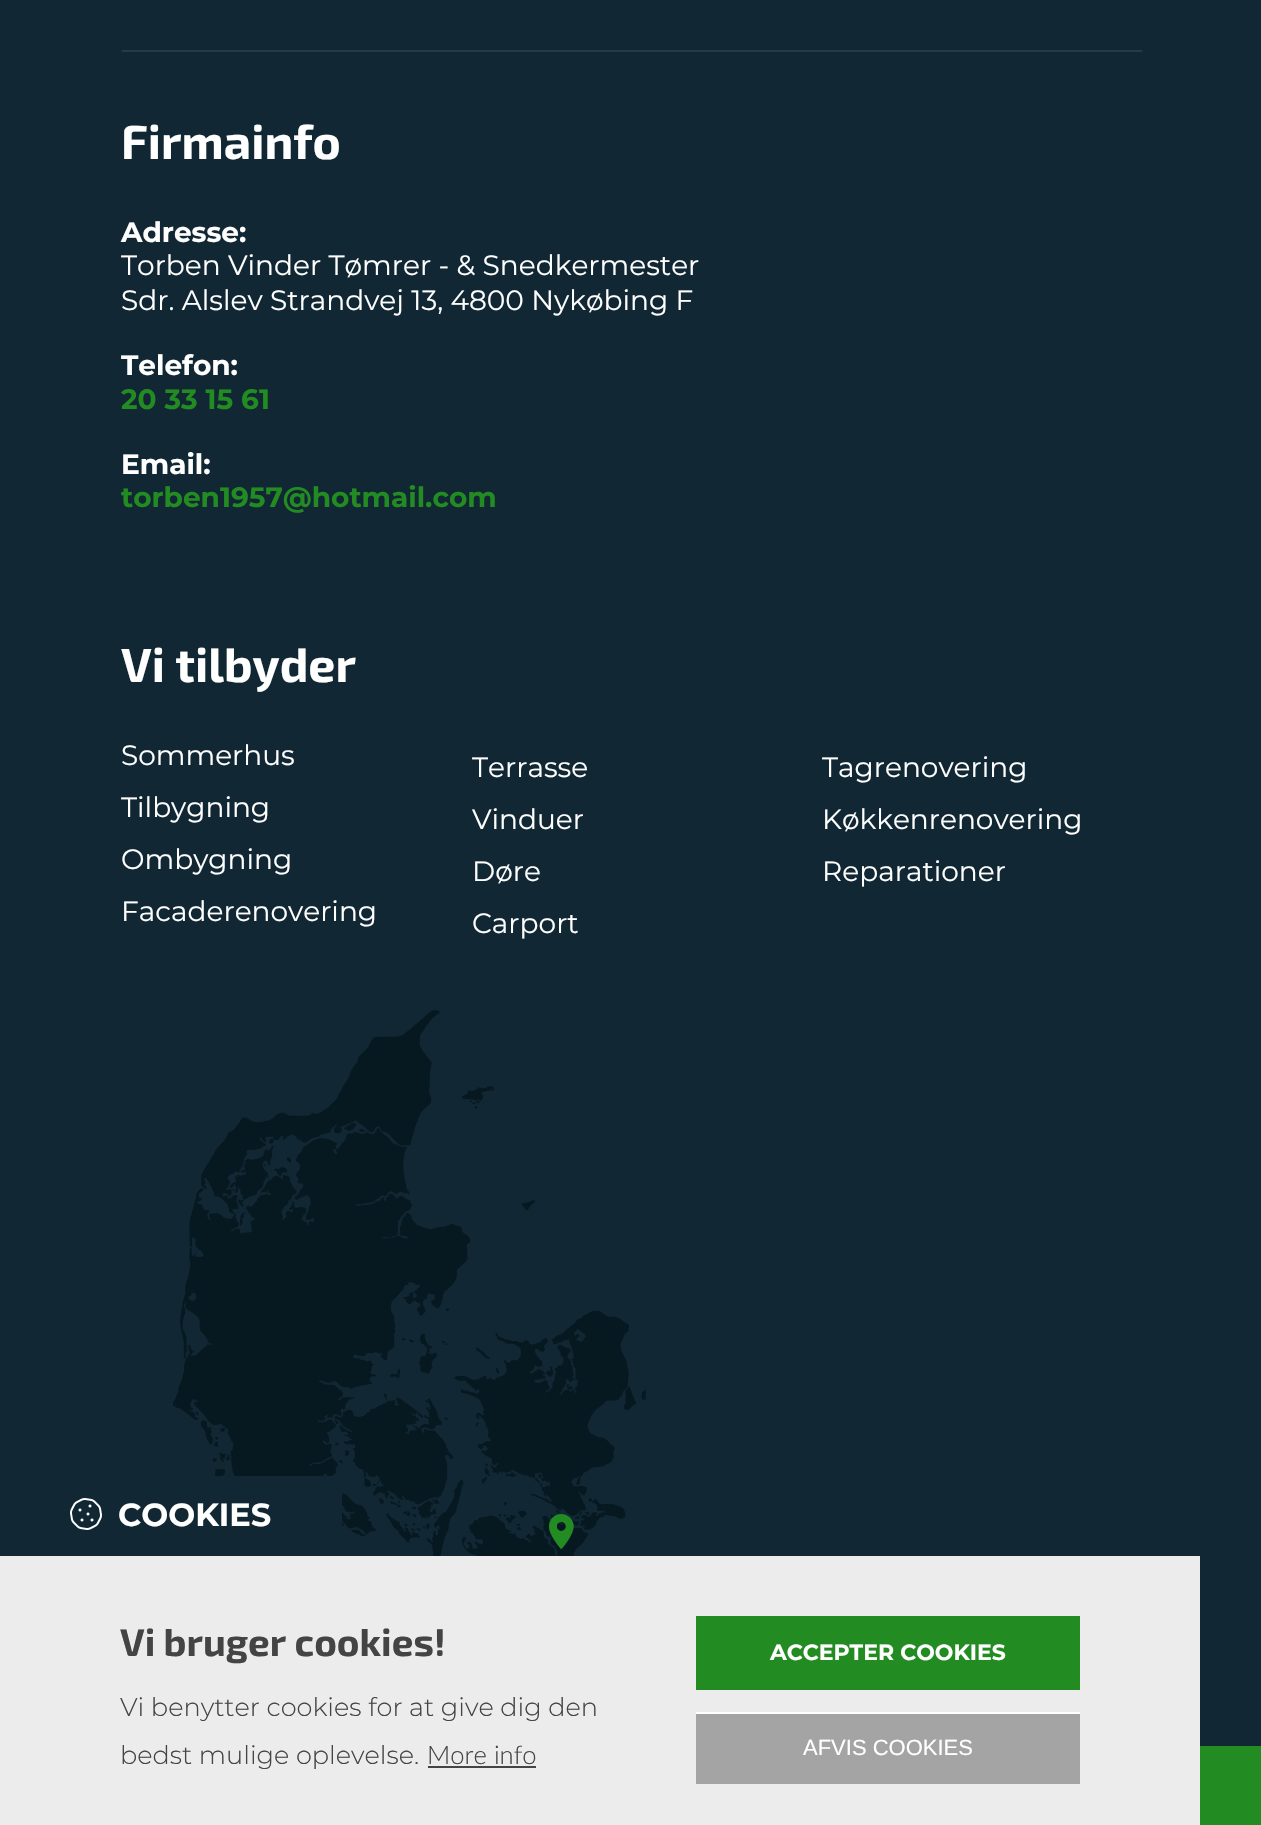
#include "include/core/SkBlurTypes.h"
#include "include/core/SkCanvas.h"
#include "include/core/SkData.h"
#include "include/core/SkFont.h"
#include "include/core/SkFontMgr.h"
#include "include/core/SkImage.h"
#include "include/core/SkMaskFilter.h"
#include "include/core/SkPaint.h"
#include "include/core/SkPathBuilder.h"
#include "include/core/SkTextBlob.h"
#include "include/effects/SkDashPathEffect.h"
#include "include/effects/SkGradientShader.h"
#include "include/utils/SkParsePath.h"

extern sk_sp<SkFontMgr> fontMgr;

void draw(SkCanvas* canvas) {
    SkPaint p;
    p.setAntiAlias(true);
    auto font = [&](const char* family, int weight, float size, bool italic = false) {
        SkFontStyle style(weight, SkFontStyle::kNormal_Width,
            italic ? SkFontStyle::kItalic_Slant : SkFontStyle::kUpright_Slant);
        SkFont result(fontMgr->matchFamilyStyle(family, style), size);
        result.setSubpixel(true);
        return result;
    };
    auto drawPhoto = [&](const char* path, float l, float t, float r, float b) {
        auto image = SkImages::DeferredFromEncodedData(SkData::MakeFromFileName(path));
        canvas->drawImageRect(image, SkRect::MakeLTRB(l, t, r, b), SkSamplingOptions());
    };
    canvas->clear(0xFF112733);
    p.setColor(0xFF273B46);
    canvas->drawRect(SkRect::MakeLTRB(122, 50, 1142, 52), p);
    auto font1 = font("Exo 2", 700, 48);
    p.setColor(0xFFFFFFFF);
    canvas->drawString("Firmainfo", 121, 159, font1, p);
    auto font2 = font("Montserrat", 700, 28);
    canvas->drawString("Adresse:", 121, 242, font2, p);
    auto font3 = font("Montserrat", 400, 28);
    canvas->drawString("Torben Vinder Tømrer - & Snedkermester", 121, 275, font3, p);
    canvas->drawString("Sdr. Alslev Strandvej 13, 4800 Nykøbing F", 121, 310, font3, p);
    canvas->drawString("Telefon:", 121, 375, font2, p);
    p.setColor(0xFF228B22);
    canvas->drawString("20 33 15 61", 121, 409, font2, p);
    p.setColor(0xFFFFFFFF);
    canvas->drawString("Email:", 121, 474, font2, p);
    p.setColor(0xFF228B22);
    canvas->drawString("torben1957@hotmail.com", 121, 507, font2, p);
    p.setColor(0xFFFFFFFF);
    canvas->drawString("Vi tilbyder", 121, 682, font1, p);
    {
        const struct { const char* s; float x, y; } items[] = {
            {"Sommerhus", 121, 765},
            {"Terrasse", 472, 777},
            {"Tagrenovering", 822, 777},
            {"Tilbygning", 121, 817},
            {"Vinduer", 472, 829},
            {"Køkkenrenovering", 822, 829},
            {"Ombygning", 121, 869},
            {"Døre", 472, 881},
            {"Reparationer", 822, 881},
            {"Facaderenovering", 121, 921},
            {"Carport", 472, 933},
        };
        for (auto [s, x, y] : items) {
            canvas->drawString(s, x, y, font3, p);
        }
    }
    drawPhoto("media/1.png", 173, 1010, 646, 1556);
    {
        const struct { float l, t, r, b; SkColor color; } items[] = {
            {1200, 1746, 1261, 1825, 0xFF228B22},
            {0, 1556, 1200, 1825, 0xFFECECEC},
            {212, 1476, 342, 1541, 0xFF112733},
        };
        for (auto [l, t, r, b, color] : items) {
            p.setColor(color);
            canvas->drawRect(SkRect::MakeLTRB(l, t, r, b), p);
        }
    }
    drawPhoto("media/2.png", 70, 1498, 102, 1530);
    auto font4 = font("Montserrat", 700, 32);
    p.setColor(0xFFFFFFFF);
    canvas->drawString("COOKIES", 118, 1526, font4, p);
    auto font5 = font("Exo 2", 700, 38.5f);
    p.setColor(0xFF444444);
    canvas->drawString("Vi bruger cookies!", 120, 1656, font5, p);
    auto font6 = font("Montserrat", 300, 25.6f);
    canvas->drawString("Vi benytter cookies for at give dig den", 120, 1716, font6, p);
    canvas->drawString("bedst mulige oplevelse.", 120, 1764, font6, p);
    auto font7 = font("Lato", 300, 25.6f);
    canvas->drawString("More info", 427, 1764, font7, p);
    canvas->drawRect(SkRect::MakeLTRB(428, 1766, 536, 1768), p);
    p.setColor(0xFF228B22);
    canvas->drawRect(SkRect::MakeLTRB(696, 1616, 1080, 1690), p);
    auto font8 = font("Montserrat", 700, 22);
    p.setColor(0xFFFFFFFF);
    canvas->drawString("ACCEPTER COOKIES", 770, 1660, font8, p);
    p.setColor(0xFFA4A4A4);
    canvas->drawRect(SkRect::MakeLTRB(696, 1714, 1080, 1784), p);
    p.setColor(0xFFFFFFFF);
    canvas->drawRect(SkRect::MakeLTRB(696, 1712, 1080, 1714), p);
    auto font9 = font("Liberation Sans", 400, 22);
    canvas->drawString("AFVIS COOKIES", 803, 1755, font9, p);
}
